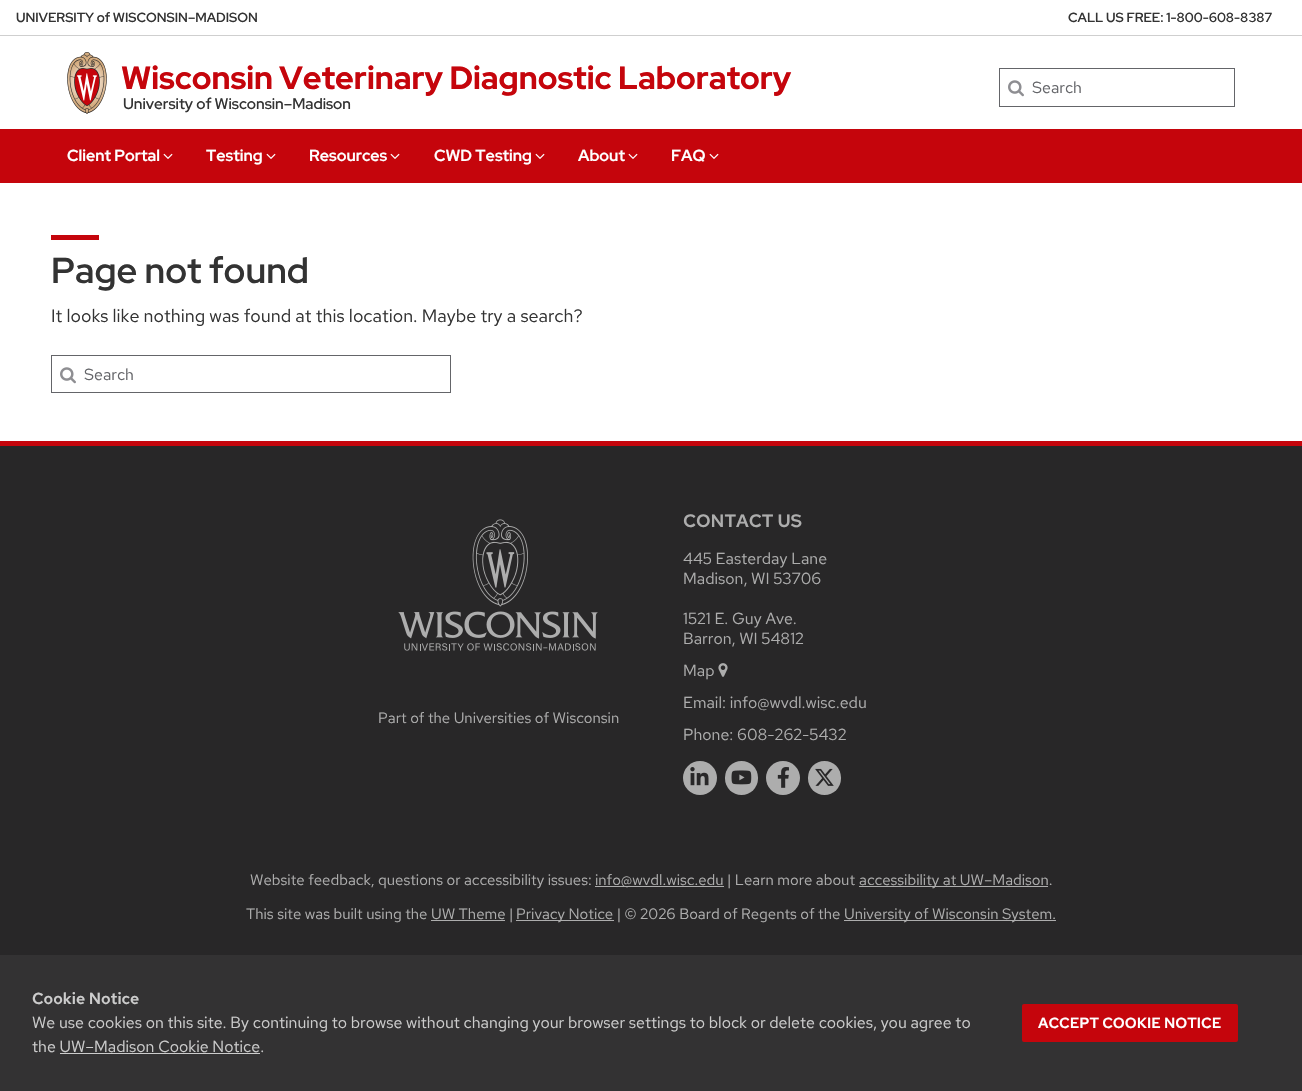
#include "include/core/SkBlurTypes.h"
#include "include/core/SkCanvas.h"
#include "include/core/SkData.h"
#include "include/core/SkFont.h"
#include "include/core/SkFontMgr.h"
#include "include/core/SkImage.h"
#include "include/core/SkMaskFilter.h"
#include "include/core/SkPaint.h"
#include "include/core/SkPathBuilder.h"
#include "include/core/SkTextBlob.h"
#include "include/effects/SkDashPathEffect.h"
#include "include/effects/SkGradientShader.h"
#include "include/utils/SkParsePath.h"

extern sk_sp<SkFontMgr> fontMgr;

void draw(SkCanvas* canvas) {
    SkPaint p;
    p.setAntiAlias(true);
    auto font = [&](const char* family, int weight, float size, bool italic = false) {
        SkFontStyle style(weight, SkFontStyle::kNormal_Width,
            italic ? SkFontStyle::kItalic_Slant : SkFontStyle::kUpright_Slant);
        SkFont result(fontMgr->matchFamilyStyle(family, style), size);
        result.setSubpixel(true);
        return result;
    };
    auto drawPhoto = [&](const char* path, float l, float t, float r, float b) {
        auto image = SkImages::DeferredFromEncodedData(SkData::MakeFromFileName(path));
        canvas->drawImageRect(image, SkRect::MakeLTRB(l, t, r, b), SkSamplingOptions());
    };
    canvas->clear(0xFFFFFFFF);
    p.setColor(0xFFCFCFCF);
    canvas->drawRect(SkRect::MakeLTRB(0, 35, 1302, 36), p);
    auto font1 = font("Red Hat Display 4", 600, 13.25f);
    p.setColor(0xFF333333);
    canvas->drawString("UNIVERSITY of WISCONSIN–MADISON", 16, 22, font1, p);
    canvas->drawString("CALL US FREE: 1-800-608-8387", 1068, 22, font1, p);
    p.setColor(0xFFC5050C);
    canvas->drawRect(SkRect::MakeLTRB(0, 129, 1302, 183), p);
    auto font2 = font("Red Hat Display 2", 600, 16);
    p.setColor(0xFFFFFFFF);
    canvas->drawString("Client Portal", 67, 161, font2, p);
    drawPhoto("media/1.png", 163, 153, 173, 159);
    canvas->drawString("Testing", 206, 161, font2, p);
    drawPhoto("media/1.png", 266, 153, 276, 159);
    canvas->drawString("Resources", 309, 161, font2, p);
    drawPhoto("media/1.png", 390, 153, 400, 159);
    canvas->drawString("CWD Testing", 434, 161, font2, p);
    drawPhoto("media/1.png", 535, 153, 545, 159);
    canvas->drawString("About", 578, 161, font2, p);
    drawPhoto("media/1.png", 628, 153, 638, 159);
    canvas->drawString("FAQ", 671, 161, font2, p);
    drawPhoto("media/1.png", 709, 153, 719, 159);
    drawPhoto("media/2.png", 67, 52, 107, 114);
    auto font3 = font("Red Hat Display", 800, 32);
    p.setColor(0xFFC5050C);
    canvas->drawString("Wisconsin Veterinary Diagnostic Laboratory", 121, 89, font3, p);
    auto font4 = font("Red Hat Display", 600, 15.25f);
    p.setColor(0xFF333333);
    canvas->drawString("University of Wisconsin–Madison", 123, 109, font4, p);
    drawPhoto("media/3.png", 1008, 80, 1024, 97);
    p.setStyle(SkPaint::kStroke_Style);
    p.setStrokeWidth(1);
    p.setColor(0xFF646569);
    canvas->drawRect(SkRect::MakeLTRB(999.5f, 68.5f, 1234.5f, 106.5f), p);
    auto font5 = font("Red Hat Text", 400, 16);
    p.setStyle(SkPaint::kFill_Style);
    canvas->drawString("Search", 1032, 93, font5, p);
    p.setColor(0xFFC5050C);
    canvas->drawRect(SkRect::MakeLTRB(51, 235, 99, 240), p);
    auto font6 = font("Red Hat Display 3", 600, 36);
    p.setColor(0xFF333333);
    canvas->drawString("Page not found", 51, 283, font6, p);
    auto font7 = font("Red Hat Text", 400, 18);
    canvas->drawString("It looks like nothing was found at this location. Maybe try a search?", 51, 322, font7, p);
    drawPhoto("media/3.png", 60, 367, 76, 384);
    p.setStyle(SkPaint::kStroke_Style);
    p.setColor(0xFF646569);
    canvas->drawRect(SkRect::MakeLTRB(51.5f, 355.5f, 450.5f, 392.5f), p);
    p.setStyle(SkPaint::kFill_Style);
    canvas->drawString("Search", 84, 380, font5, p);
    p.setColor(0xFF282728);
    canvas->drawRect(SkRect::MakeLTRB(0, 446, 1302, 955), p);
    p.setColor(0xFFC5050C);
    canvas->drawRect(SkRect::MakeLTRB(0, 441, 1302, 446), p);
    drawPhoto("media/4.png", 398, 519, 598, 651);
    auto font8 = font("Red Hat Text", 400, 15);
    p.setColor(0xFFADADAD);
    canvas->drawString("Part of the Universities of Wisconsin", 378, 723, font8, p);
    auto font9 = font("Red Hat Text", 600, 18);
    canvas->drawString("CONTACT US", 683, 527, font9, p);
    {
        const struct { const char* s; float x, y; } items[] = {
            {"445 Easterday Lane", 683, 564},
            {"Madison, WI 53706", 683, 584},
            {"1521 E. Guy Ave.", 683, 624},
            {"Barron, WI 54812", 683, 644},
            {"Map", 683, 676},
        };
        for (auto [s, x, y] : items) {
            canvas->drawString(s, x, y, font5, p);
        }
    }
    drawPhoto("media/5.png", 718, 663, 728, 677);
    canvas->drawString("Email: info@wvdl.wisc.edu", 683, 708, font5, p);
    canvas->drawString("Phone: 608-262-5432", 683, 740, font5, p);
    canvas->drawCircle(700, 778, 17, p);
    drawPhoto("media/6.png", 690, 767, 709, 786);
    canvas->drawRoundRect(SkRect::MakeLTRB(725, 761, 758, 795), 16.5f, 16.5f, p);
    drawPhoto("media/7.png", 731, 770, 752, 785);
    canvas->drawCircle(783, 778, 17, p);
    drawPhoto("media/8.png", 777, 767, 789, 788);
    canvas->drawRoundRect(SkRect::MakeLTRB(808, 761, 841, 795), 16.5f, 16.5f, p);
    drawPhoto("media/9.png", 815, 768, 834, 786);
    canvas->drawString("Website feedback, questions or accessibility issues:", 250, 885, font8, p);
    canvas->drawRect(SkRect::MakeLTRB(595, 886, 724, 887), p);
    canvas->drawString("info@wvdl.wisc.edu | Learn more about", 595, 885, font8, p);
    canvas->drawRect(SkRect::MakeLTRB(859, 886, 1048, 887), p);
    canvas->drawString("accessibility at UW–Madison.", 859, 885, font8, p);
    canvas->drawString("This site was built using the UW Theme |", 246, 919, font8, p);
    canvas->drawRect(SkRect::MakeLTRB(516, 920, 614, 921), p);
    canvas->drawString("Privacy Notice | © 2026 Board of Regents of the", 516, 919, font8, p);
    canvas->drawRect(SkRect::MakeLTRB(844, 920, 1056, 921), p);
    canvas->drawString("University of Wisconsin System.", 844, 919, font8, p);
    canvas->drawRect(SkRect::MakeLTRB(431, 920, 505, 921), p);
    p.setColor(0xFF333233);
    canvas->drawRect(SkRect::MakeLTRB(0, 955, 1302, 1091), p);
    auto font10 = font("Red Hat Text", 600, 16);
    p.setColor(0xFFCCCCCC);
    canvas->drawString("Cookie Notice", 32, 1004, font10, p);
    canvas->drawString("We use cookies on this site. By continuing to browse without changing your browser settings to block or delete cookies, you agree to", 32, 1028, font5, p);
    canvas->drawString("the UW–Madison Cookie Notice.", 32, 1052, font5, p);
    canvas->drawRect(SkRect::MakeLTRB(60, 1053, 260, 1054), p);
    p.setColor(0xFFC5050C);
    canvas->drawRoundRect(SkRect::MakeLTRB(1022, 1004, 1238, 1042), 2, 2, p);
    auto font11 = font("Red Hat Text", 600, 14.75f);
    p.setColor(0xFFFFFFFF);
    canvas->drawString("ACCEPT COOKIE NOTICE", 1038, 1028, font11, p);
}
